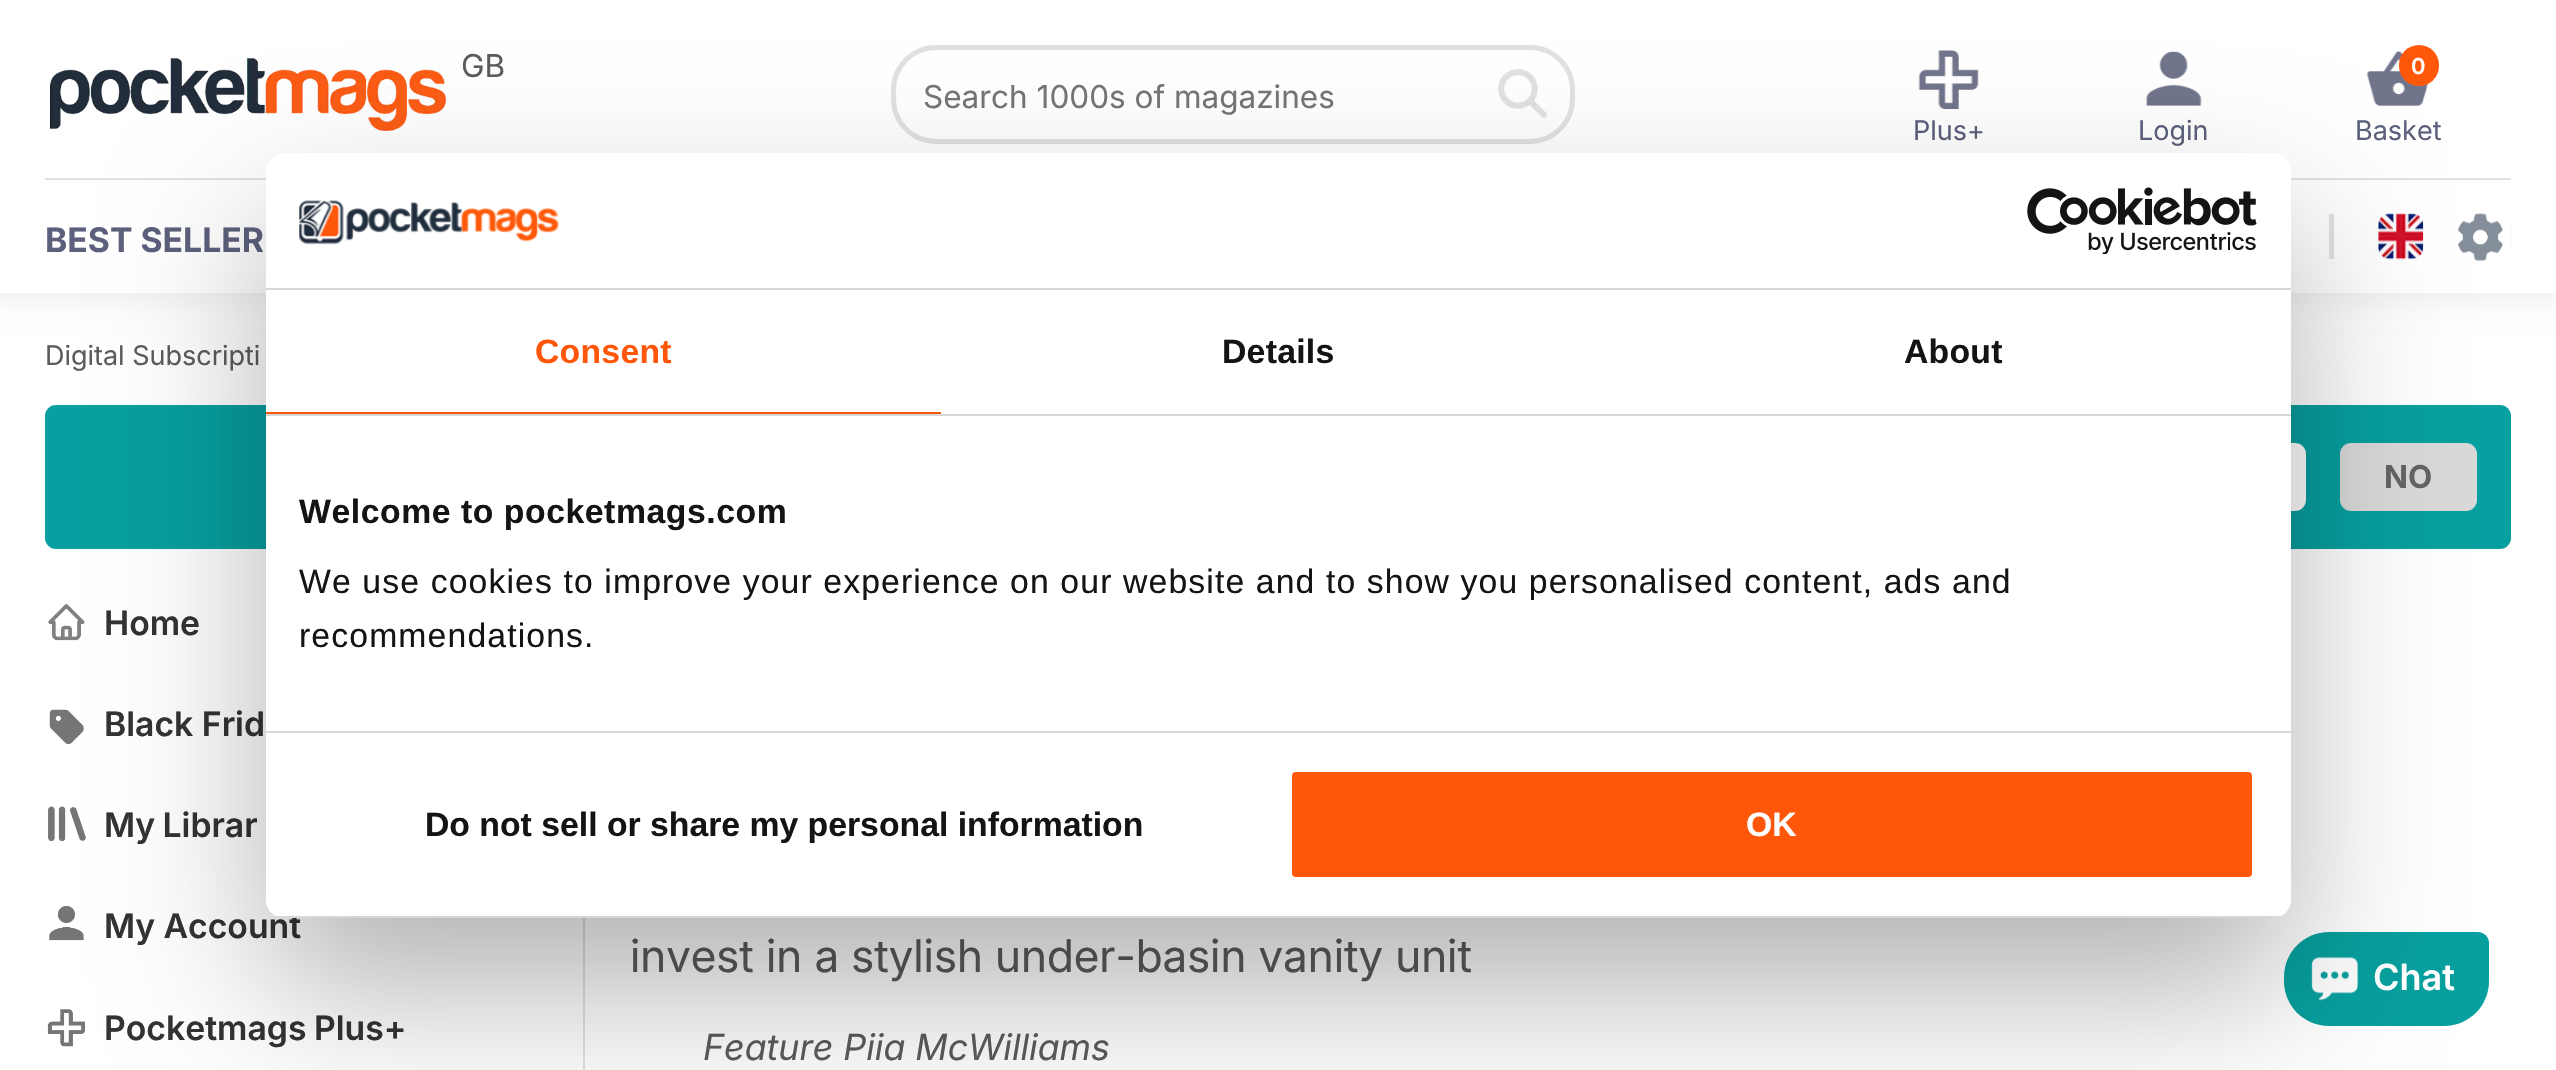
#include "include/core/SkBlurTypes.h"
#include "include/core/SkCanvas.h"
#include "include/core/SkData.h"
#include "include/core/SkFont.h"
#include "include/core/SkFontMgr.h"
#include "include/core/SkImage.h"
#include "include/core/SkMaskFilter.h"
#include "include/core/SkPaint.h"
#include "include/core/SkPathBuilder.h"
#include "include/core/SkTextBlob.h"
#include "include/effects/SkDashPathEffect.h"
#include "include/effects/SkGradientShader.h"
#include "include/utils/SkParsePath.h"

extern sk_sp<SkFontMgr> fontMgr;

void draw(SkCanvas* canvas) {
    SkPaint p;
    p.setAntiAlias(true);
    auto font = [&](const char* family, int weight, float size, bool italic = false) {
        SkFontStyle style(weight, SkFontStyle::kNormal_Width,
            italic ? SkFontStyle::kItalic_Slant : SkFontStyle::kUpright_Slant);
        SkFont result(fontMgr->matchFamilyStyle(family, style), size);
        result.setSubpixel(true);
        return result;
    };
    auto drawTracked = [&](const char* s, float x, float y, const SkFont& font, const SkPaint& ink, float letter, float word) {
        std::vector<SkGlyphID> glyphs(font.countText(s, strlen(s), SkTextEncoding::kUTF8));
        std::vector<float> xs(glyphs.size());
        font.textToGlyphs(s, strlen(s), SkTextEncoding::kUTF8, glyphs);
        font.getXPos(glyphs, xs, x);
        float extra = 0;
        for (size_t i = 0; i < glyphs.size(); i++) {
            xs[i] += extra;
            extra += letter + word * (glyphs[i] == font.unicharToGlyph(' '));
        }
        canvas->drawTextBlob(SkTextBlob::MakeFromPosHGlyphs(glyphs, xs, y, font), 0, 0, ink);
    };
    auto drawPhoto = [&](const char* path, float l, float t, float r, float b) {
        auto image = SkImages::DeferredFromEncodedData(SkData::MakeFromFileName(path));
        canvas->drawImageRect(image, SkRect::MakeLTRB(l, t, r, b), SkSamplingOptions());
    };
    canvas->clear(0xFFFFFFFF);
    p.setColor(0x0D000000);
    p.setMaskFilter(SkMaskFilter::MakeBlur(kNormal_SkBlurStyle, 11));
    canvas->drawRect(SkRect::MakeLTRB(-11, -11, 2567, 304), p);
    p.setMaskFilter(nullptr);
    p.setColor(0xFFFFFFFF);
    canvas->drawRect(SkRect::MakeLTRB(0, 0, 2556, 293), p);
    p.setColor(0xFFE1E1E1);
    canvas->drawRect(SkRect::MakeLTRB(45, 178, 2511, 180), p);
    drawPhoto("media/1.png", 50, 58, 447, 131);
    auto font1 = font("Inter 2", 400, 31.5f);
    p.setColor(0xFF5C5C5C);
    canvas->drawString("GB", 461, 77, font1, p);
    p.setStyle(SkPaint::kStroke_Style);
    p.setStrokeWidth(5);
    p.setColor(0xFFE1E1E1);
    canvas->drawRoundRect(SkRect::MakeLTRB(893.5f, 47.5f, 1572.5f, 141.5f), 42.5f, 42.5f, p);
    p.setStyle(SkPaint::kFill_Style);
    p.setColor(0xFF757575);
    canvas->drawString("Search 1000s of magazines", 923, 108, font1, p);
    drawPhoto("media/2.png", 1498, 69, 1547, 118);
    drawPhoto("media/3.png", 1918, 50, 1979, 110);
    auto font2 = font("Inter 2", 400, 27);
    p.setColor(0xFF5C607C);
    canvas->drawString("Plus+", 1913, 140, font2, p);
    drawPhoto("media/4.png", 2145, 51, 2202, 106);
    canvas->drawString("Login", 2138, 140, font2, p);
    drawPhoto("media/5.png", 2366, 51, 2429, 106);
    p.setColor(0xFFFF580A);
    canvas->drawRoundRect(SkRect::MakeLTRB(2399, 45, 2439, 86), 20, 20, p);
    auto font3 = font("Inter", 600, 22);
    p.setColor(0xFFFFFFFF);
    canvas->drawString("0", 2411, 74, font3, p);
    p.setColor(0xFF5C607C);
    canvas->drawString("Basket", 2355, 140, font2, p);
    auto font4 = font("Inter", 700, 33.75f);
    canvas->drawString("BEST SELLER", 45, 252, font4, p);
    p.setColor(0xFFE1E1E1);
    canvas->drawRect(SkRect::MakeLTRB(2329, 214, 2334, 259), p);
    drawPhoto("media/6.png", 2378, 213, 2424, 260);
    drawPhoto("media/7.png", 2458, 213, 2511, 262);
    p.setColor(0xFF5C5C5C);
    canvas->drawString("Digital Subscripti", 45, 365, font2, p);
    p.setColor(0xFF079F9F);
    canvas->drawRoundRect(SkRect::MakeLTRB(45, 405, 2511, 549), 11, 11, p);
    p.setColor(0xFFFFFFFF);
    canvas->drawRoundRect(SkRect::MakeLTRB(2153, 443, 2306, 511), 11, 11, p);
    p.setColor(0xFFD9D9D9);
    canvas->drawRoundRect(SkRect::MakeLTRB(2340, 443, 2477, 511), 11, 11, p);
    auto font5 = font("Inter", 700, 31.5f);
    p.setColor(0xFF646464);
    canvas->drawString("NO", 2384, 488, font5, p);
    drawPhoto("media/8.png", 48, 604, 85, 641);
    auto font6 = font("Inter", 600, 33.75f);
    p.setColor(0xFF333333);
    canvas->drawString("Home", 104, 635, font6, p);
    drawPhoto("media/9.png", 49, 709, 84, 745);
    canvas->drawString("Black Frid", 104, 736, font6, p);
    drawPhoto("media/10.png", 48, 806, 86, 841);
    drawTracked("My Librar", 104, 837, font6, p, 0, -1);
    drawPhoto("media/11.png", 49, 906, 84, 941);
    canvas->drawString("My Account", 104, 938, font6, p);
    drawPhoto("media/12.png", 47, 1009, 85, 1047);
    drawTracked("Pocketmags Plus+", 104, 1040, font6, p, 0, -1);
    p.setColor(0xFFE1E1E1);
    canvas->drawRect(SkRect::MakeLTRB(583, 918, 585, 1070), p);
    auto font7 = font("Inter", 400, 45);
    p.setColor(0xFF5C5C5C);
    canvas->drawString("invest in a stylish under-basin vanity unit", 630, 972, font7, p);
    auto font8 = font("Inter", 400, 36, true);
    canvas->drawString("Feature Piia McWilliams", 703, 1060, font8, p);
    p.setColor(0xFF07A09E);
    canvas->drawPath(SkPathBuilder().moveTo(2329, 932).lineTo(2478, 932).cubicTo(2484, 932, 2489, 937, 2489, 943).lineTo(2489, 981).cubicTo(2489, 1006, 2469, 1026, 2444, 1026).lineTo(2329, 1026).cubicTo(2304, 1026, 2284, 1006, 2284, 981).lineTo(2284, 977).cubicTo(2284, 952, 2304, 932, 2329, 932).close().detach(), p);
    drawPhoto("media/13.png", 2311, 957, 2359, 1001);
    auto font9 = font("Inter", 600, 36);
    p.setColor(0xFFFFFFFF);
    canvas->drawString("Chat", 2373, 990, font9, p);
    p.setColor(0x4D000000);
    p.setMaskFilter(SkMaskFilter::MakeBlur(kNormal_SkBlurStyle, 76.5f));
    canvas->drawRoundRect(SkRect::MakeLTRB(266, 225, 2291, 990), 18, 18, p);
    p.setMaskFilter(nullptr);
    p.setColor(0xFFFFFFFF);
    canvas->drawRoundRect(SkRect::MakeLTRB(266, 153, 2291, 918), 18, 18, p);
    p.setColor(0xFFD6D6D6);
    canvas->drawRect(SkRect::MakeLTRB(266, 288, 2291, 290), p);
    drawPhoto("media/14.png", 299, 200, 559, 245);
    drawPhoto("media/15.png", 2027, 187, 2257, 254);
    canvas->drawRect(SkRect::MakeLTRB(266, 414, 2291, 416), p);
    p.setColor(0xFFFF5709);
    canvas->drawRect(SkRect::MakeLTRB(266, 412, 941, 414), p);
    auto font10 = font("Liberation Sans", 700, 33.75f);
    drawTracked("Consent", 535, 363, font10, p, 0.25f, 0);
    p.setColor(0xFF141414);
    drawTracked("Details", 1222, 363, font10, p, 0.25f, 0);
    drawTracked("About", 1904, 363, font10, p, 0.25f, 0);
    p.setColor(0xFFD6D6D6);
    canvas->drawRect(SkRect::MakeLTRB(266, 731, 2291, 733), p);
    p.setColor(0xFF141414);
    drawTracked("Welcome to pocketmags.com", 299, 523, font10, p, 0.55f, 0);
    auto font11 = font("Liberation Sans", 400, 33.75f);
    drawTracked("We use cookies to improve your experience on our website and to show you personalised content, ads and", 299, 593, font11, p, 1.12f, 0);
    drawTracked("recommendations.", 299, 647, font11, p, 1.12f, 0);
    canvas->save();
    canvas->clipPath(SkPathBuilder().moveTo(284, 153).lineTo(2273, 153).cubicTo(2283, 153, 2291, 161, 2291, 171).lineTo(2291, 900).cubicTo(2291, 910, 2283, 918, 2273, 918).lineTo(284, 918).cubicTo(274, 918, 266, 910, 266, 900).lineTo(266, 171).cubicTo(266, 161, 274, 153, 284, 153).close().detach(), true);
    p.setColor(0xFFD6D6D6);
    canvas->drawRect(SkRect::MakeLTRB(276, 916, 2281, 918), p);
    canvas->restore();
    p.setColor(0xFF141414);
    canvas->drawString("Do not sell or share my personal information", 425, 836, font10, p);
    p.setColor(0xFFFF5709);
    canvas->drawRoundRect(SkRect::MakeLTRB(1289.5f, 769.5f, 2254.5f, 879.5f), 6.5f, 6.5f, p);
    p.setStyle(SkPaint::kStroke_Style);
    p.setColor(0xFFFFFFFF);
    canvas->drawRoundRect(SkRect::MakeLTRB(1289.5f, 769.5f, 2254.5f, 879.5f), 6.5f, 6.5f, p);
    p.setStyle(SkPaint::kFill_Style);
    canvas->drawString("OK", 1746, 836, font10, p);
}
